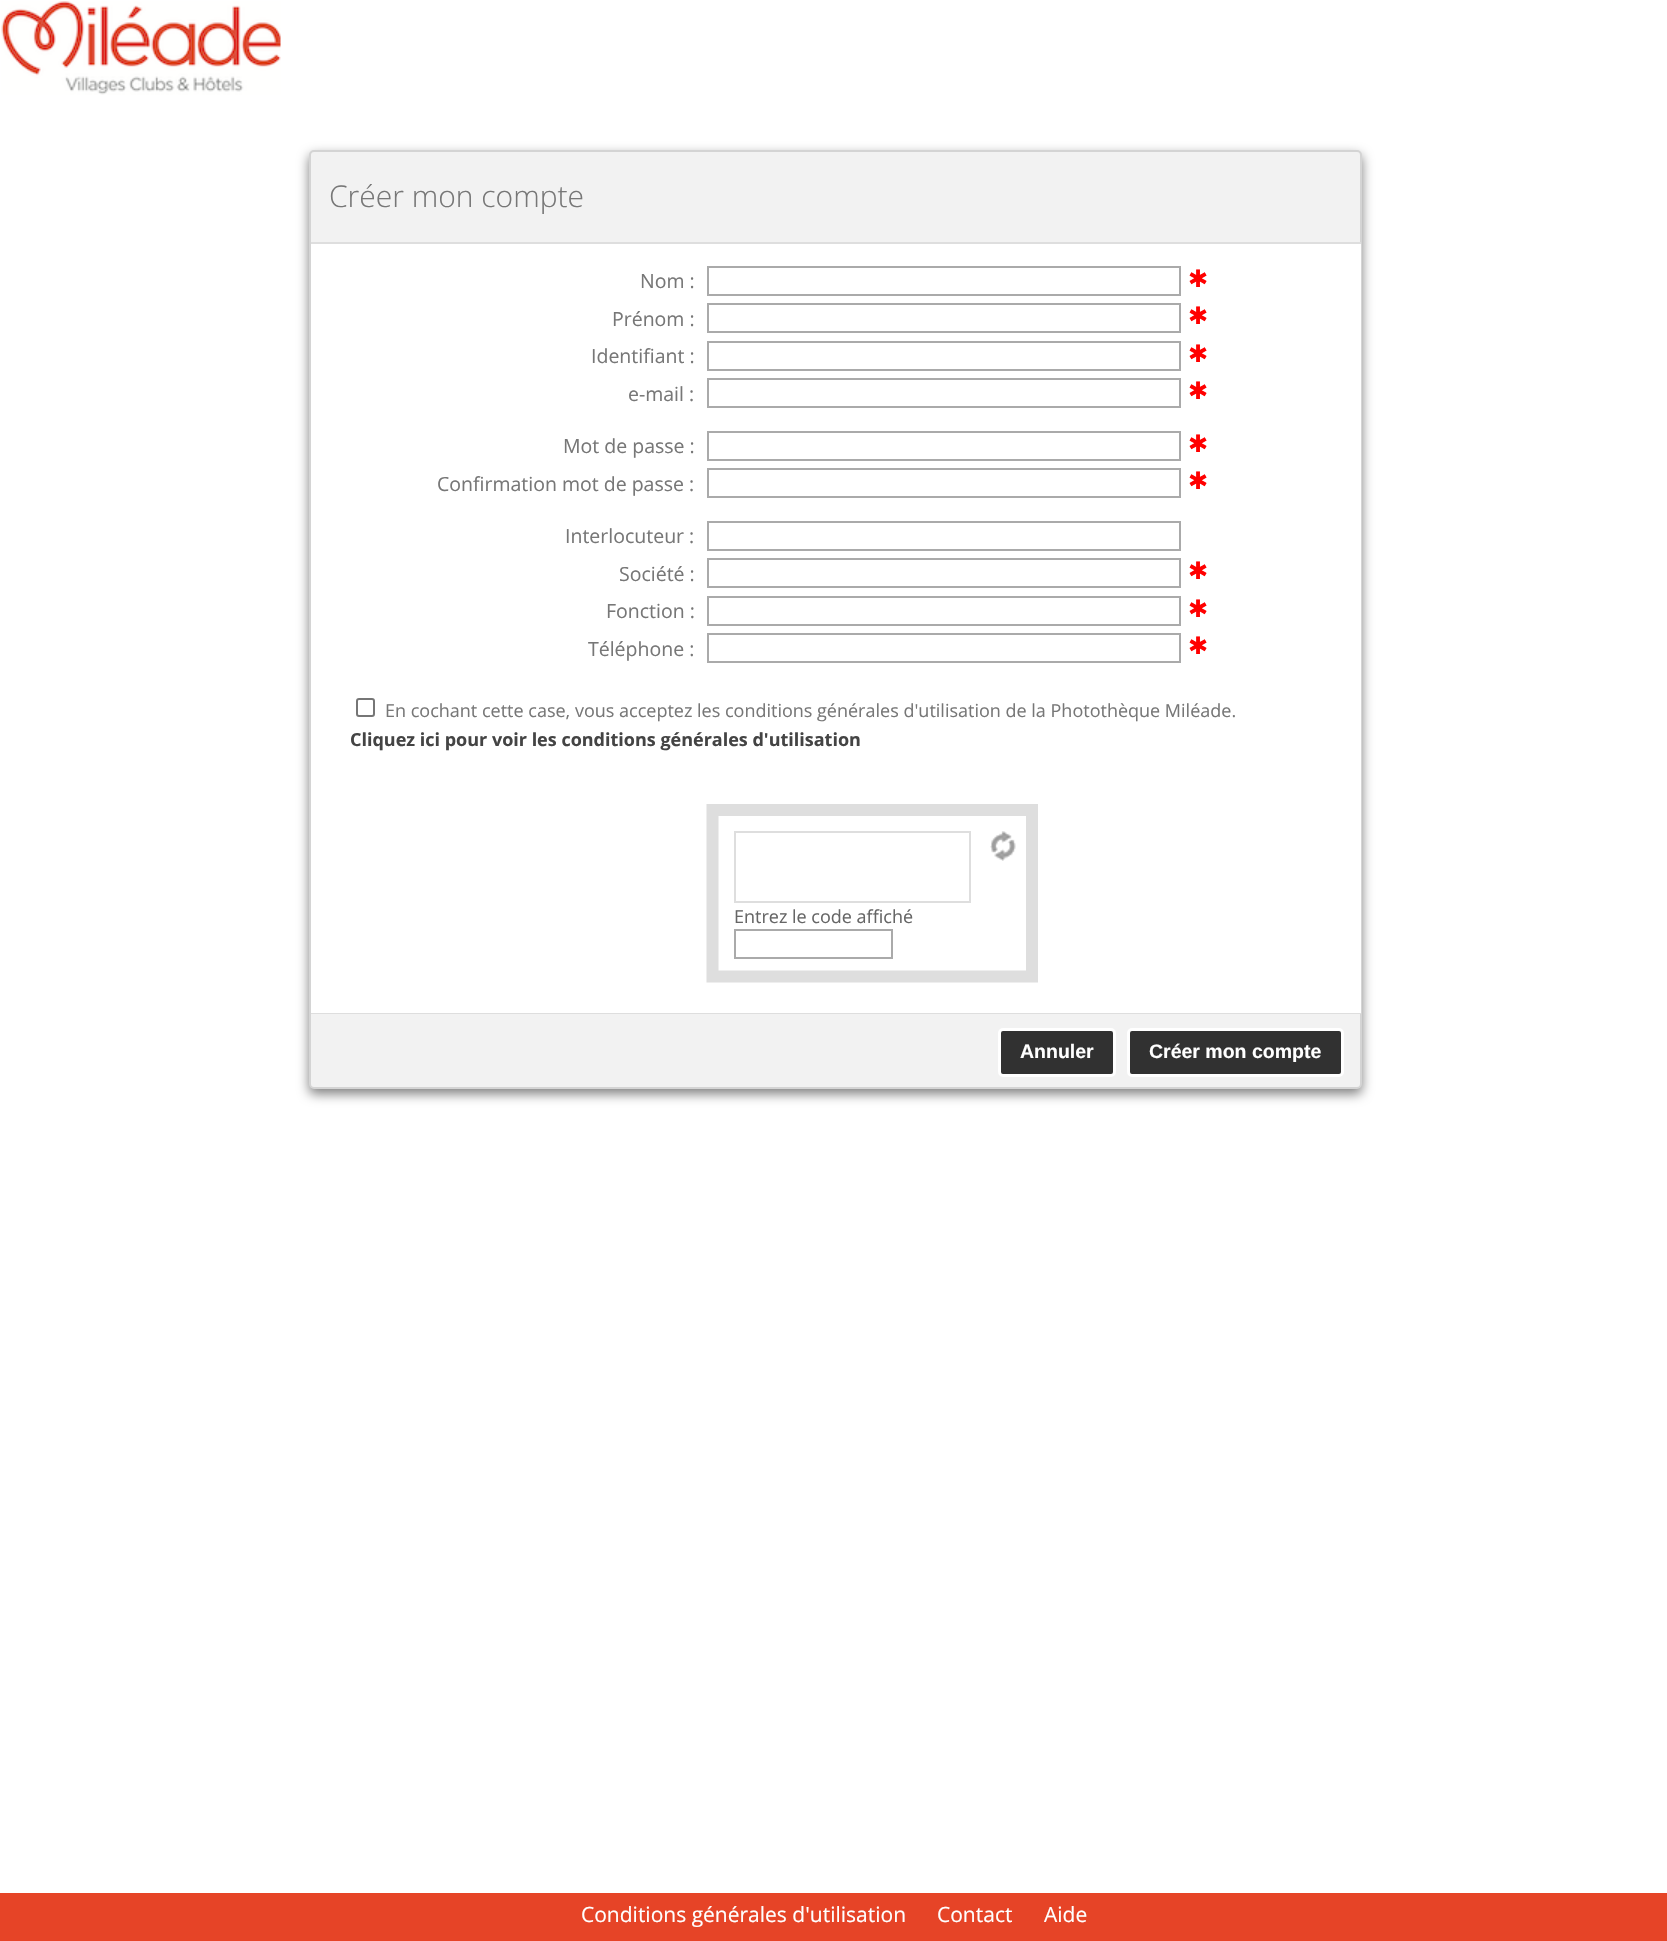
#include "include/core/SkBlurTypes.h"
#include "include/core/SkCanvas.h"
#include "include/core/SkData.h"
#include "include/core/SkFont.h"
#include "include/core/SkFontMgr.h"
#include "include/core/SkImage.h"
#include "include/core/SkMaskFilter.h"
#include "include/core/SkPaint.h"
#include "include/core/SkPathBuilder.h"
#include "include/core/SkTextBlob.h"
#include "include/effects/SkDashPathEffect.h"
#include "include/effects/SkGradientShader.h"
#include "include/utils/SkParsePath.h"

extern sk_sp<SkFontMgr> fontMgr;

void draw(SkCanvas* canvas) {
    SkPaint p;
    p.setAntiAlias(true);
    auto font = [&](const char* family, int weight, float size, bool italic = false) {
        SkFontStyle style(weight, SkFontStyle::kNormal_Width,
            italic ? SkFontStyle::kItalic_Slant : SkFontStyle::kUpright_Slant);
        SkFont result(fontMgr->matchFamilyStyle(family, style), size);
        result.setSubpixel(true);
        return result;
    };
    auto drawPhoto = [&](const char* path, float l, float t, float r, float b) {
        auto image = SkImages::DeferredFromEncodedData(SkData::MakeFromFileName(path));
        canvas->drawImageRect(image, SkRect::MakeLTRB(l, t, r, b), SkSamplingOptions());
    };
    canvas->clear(0xFFFFFFFF);
    drawPhoto("media/1.png", 1, 1, 281, 95);
    p.setColor(0x80000000);
    p.setMaskFilter(SkMaskFilter::MakeBlur(kNormal_SkBlurStyle, 6));
    canvas->drawRoundRect(SkRect::MakeLTRB(309, 155, 1362, 1094), 5, 5, p);
    p.setMaskFilter(nullptr);
    p.setColor(0xFFF2F2F2);
    canvas->drawRoundRect(SkRect::MakeLTRB(310, 151, 1361, 1088), 4, 4, p);
    p.setStyle(SkPaint::kStroke_Style);
    p.setStrokeWidth(2);
    p.setColor(0xFFD4D4D4);
    canvas->drawRoundRect(SkRect::MakeLTRB(310, 151, 1361, 1088), 4, 4, p);
    auto font1 = font("Open Sans", 300, 30);
    p.setStyle(SkPaint::kFill_Style);
    p.setColor(0xFF777777);
    canvas->drawString("Créer mon compte", 329, 207, font1, p);
    {
        const struct { float l, t, r, b; SkColor color; } items[] = {
            {311, 244, 1361, 1013, 0xFFFFFFFF},
            {311, 242, 1361, 244, 0xFFDEDEDE},
            {311, 1013, 1361, 1014, 0xFFDEDEDE},
        };
        for (auto [l, t, r, b, color] : items) {
            p.setColor(color);
            canvas->drawRect(SkRect::MakeLTRB(l, t, r, b), p);
        }
    }
    auto font2 = font("Open Sans", 400, 19.5f);
    p.setColor(0xFF777777);
    canvas->drawString("Nom :", 640, 288, font2, p);
    p.setStyle(SkPaint::kStroke_Style);
    p.setColor(0xFFAAAAAA);
    canvas->drawRect(SkRect::MakeLTRB(708, 267, 1180, 295), p);
    auto font3 = font("DejaVu Sans", 400, 24);
    p.setStyle(SkPaint::kFill_Style);
    p.setColor(0xFFFF0000);
    canvas->drawString("✱", 1188, 287, font3, p);
    p.setColor(0xFF777777);
    canvas->drawString("Prénom :", 612, 326, font2, p);
    p.setStyle(SkPaint::kStroke_Style);
    p.setColor(0xFFAAAAAA);
    canvas->drawRect(SkRect::MakeLTRB(708, 304, 1180, 332), p);
    p.setStyle(SkPaint::kFill_Style);
    p.setColor(0xFFFF0000);
    canvas->drawString("✱", 1188, 324, font3, p);
    p.setColor(0xFF777777);
    canvas->drawString("Identifiant :", 591, 363, font2, p);
    p.setStyle(SkPaint::kStroke_Style);
    p.setColor(0xFFAAAAAA);
    canvas->drawRect(SkRect::MakeLTRB(708, 342, 1180, 370), p);
    p.setStyle(SkPaint::kFill_Style);
    p.setColor(0xFFFF0000);
    canvas->drawString("✱", 1188, 362, font3, p);
    p.setColor(0xFF777777);
    canvas->drawString("e-mail :", 628, 401, font2, p);
    p.setStyle(SkPaint::kStroke_Style);
    p.setColor(0xFFAAAAAA);
    canvas->drawRect(SkRect::MakeLTRB(708, 379, 1180, 407), p);
    p.setStyle(SkPaint::kFill_Style);
    p.setColor(0xFFFF0000);
    canvas->drawString("✱", 1188, 399, font3, p);
    p.setColor(0xFF777777);
    canvas->drawString("Mot de passe :", 563, 453, font2, p);
    p.setStyle(SkPaint::kStroke_Style);
    p.setColor(0xFFAAAAAA);
    canvas->drawRect(SkRect::MakeLTRB(708, 432, 1180, 460), p);
    p.setStyle(SkPaint::kFill_Style);
    p.setColor(0xFFFF0000);
    canvas->drawString("✱", 1188, 452, font3, p);
    p.setColor(0xFF777777);
    canvas->drawString("Confirmation mot de passe :", 437, 491, font2, p);
    p.setStyle(SkPaint::kStroke_Style);
    p.setColor(0xFFAAAAAA);
    canvas->drawRect(SkRect::MakeLTRB(708, 469, 1180, 497), p);
    p.setStyle(SkPaint::kFill_Style);
    p.setColor(0xFFFF0000);
    canvas->drawString("✱", 1188, 489, font3, p);
    p.setColor(0xFF777777);
    canvas->drawString("Interlocuteur :", 565, 543, font2, p);
    p.setStyle(SkPaint::kStroke_Style);
    p.setColor(0xFFAAAAAA);
    canvas->drawRect(SkRect::MakeLTRB(708, 522, 1180, 550), p);
    p.setStyle(SkPaint::kFill_Style);
    p.setColor(0xFF777777);
    canvas->drawString("Société :", 619, 581, font2, p);
    p.setStyle(SkPaint::kStroke_Style);
    p.setColor(0xFFAAAAAA);
    canvas->drawRect(SkRect::MakeLTRB(708, 559, 1180, 587), p);
    p.setStyle(SkPaint::kFill_Style);
    p.setColor(0xFFFF0000);
    canvas->drawString("✱", 1188, 579, font3, p);
    p.setColor(0xFF777777);
    canvas->drawString("Fonction :", 606, 618, font2, p);
    p.setStyle(SkPaint::kStroke_Style);
    p.setColor(0xFFAAAAAA);
    canvas->drawRect(SkRect::MakeLTRB(708, 597, 1180, 625), p);
    p.setStyle(SkPaint::kFill_Style);
    p.setColor(0xFFFF0000);
    canvas->drawString("✱", 1188, 617, font3, p);
    p.setColor(0xFF777777);
    canvas->drawString("Téléphone :", 588, 656, font2, p);
    p.setStyle(SkPaint::kStroke_Style);
    p.setColor(0xFFAAAAAA);
    canvas->drawRect(SkRect::MakeLTRB(708, 634, 1180, 662), p);
    p.setStyle(SkPaint::kFill_Style);
    p.setColor(0xFFFF0000);
    canvas->drawString("✱", 1188, 654, font3, p);
    p.setStyle(SkPaint::kStroke_Style);
    p.setColor(0xFF767676);
    canvas->drawRoundRect(SkRect::MakeLTRB(357, 699, 374, 716), 2, 2, p);
    auto font4 = font("Open Sans", 400, 18);
    p.setStyle(SkPaint::kFill_Style);
    p.setColor(0xFF777777);
    canvas->drawString("En cochant cette case, vous acceptez les conditions générales d'utilisation de la Photothèque Miléade.", 385, 717, font4, p);
    auto font5 = font("Open Sans", 700, 18);
    p.setColor(0xFF444444);
    canvas->drawString("Cliquez ici pour voir les conditions générales d'utilisation", 350, 746, font5, p);
    p.setStyle(SkPaint::kStroke_Style);
    p.setStrokeWidth(12);
    p.setColor(0xFFDEDEDE);
    canvas->drawPath(SkPathBuilder().moveTo(712.5f, 810).lineTo(1032, 810).lineTo(1032, 976.5f).lineTo(712.5f, 976.5f).close().detach(), p);
    p.setStrokeWidth(2);
    canvas->drawRect(SkRect::MakeLTRB(735, 832, 970, 902), p);
    drawPhoto("media/2.png", 990, 831, 1016, 861);
    p.setStyle(SkPaint::kFill_Style);
    p.setColor(0xFF666666);
    canvas->drawString("Entrez le code affiché", 734, 923, font4, p);
    p.setStyle(SkPaint::kStroke_Style);
    p.setColor(0xFFAAAAAA);
    canvas->drawRect(SkRect::MakeLTRB(735, 930, 892, 958), p);
    p.setStyle(SkPaint::kFill_Style);
    p.setColor(0xFF313131);
    canvas->drawRoundRect(SkRect::MakeLTRB(999.5f, 1029.5f, 1114.5f, 1075.5f), 3.5f, 3.5f, p);
    p.setStyle(SkPaint::kStroke_Style);
    p.setStrokeWidth(3);
    p.setColor(0xFFFFFFFF);
    canvas->drawRoundRect(SkRect::MakeLTRB(999.5f, 1029.5f, 1114.5f, 1075.5f), 3.5f, 3.5f, p);
    auto font6 = font("Liberation Sans", 700, 19.5f);
    p.setStyle(SkPaint::kFill_Style);
    canvas->drawString("Annuler", 1020, 1058, font6, p);
    p.setColor(0xFF313131);
    canvas->drawRoundRect(SkRect::MakeLTRB(1128.5f, 1029.5f, 1342.5f, 1075.5f), 3.5f, 3.5f, p);
    p.setStyle(SkPaint::kStroke_Style);
    p.setColor(0xFFFFFFFF);
    canvas->drawRoundRect(SkRect::MakeLTRB(1128.5f, 1029.5f, 1342.5f, 1075.5f), 3.5f, 3.5f, p);
    p.setStyle(SkPaint::kFill_Style);
    canvas->drawString("Créer mon compte", 1149, 1058, font6, p);
    p.setColor(0xFFE64427);
    canvas->drawRect(SkRect::MakeLTRB(0, 1893, 1667, 1941), p);
    auto font7 = font("Open Sans", 400, 21);
    p.setColor(0xFFFFFFFF);
    {
        const struct { const char* s; float x, y; } items[] = {
            {"Conditions générales d'utilisation", 581, 1922},
            {"Contact", 937, 1922},
            {"Aide", 1044, 1922},
        };
        for (auto [s, x, y] : items) {
            canvas->drawString(s, x, y, font7, p);
        }
    }
}
